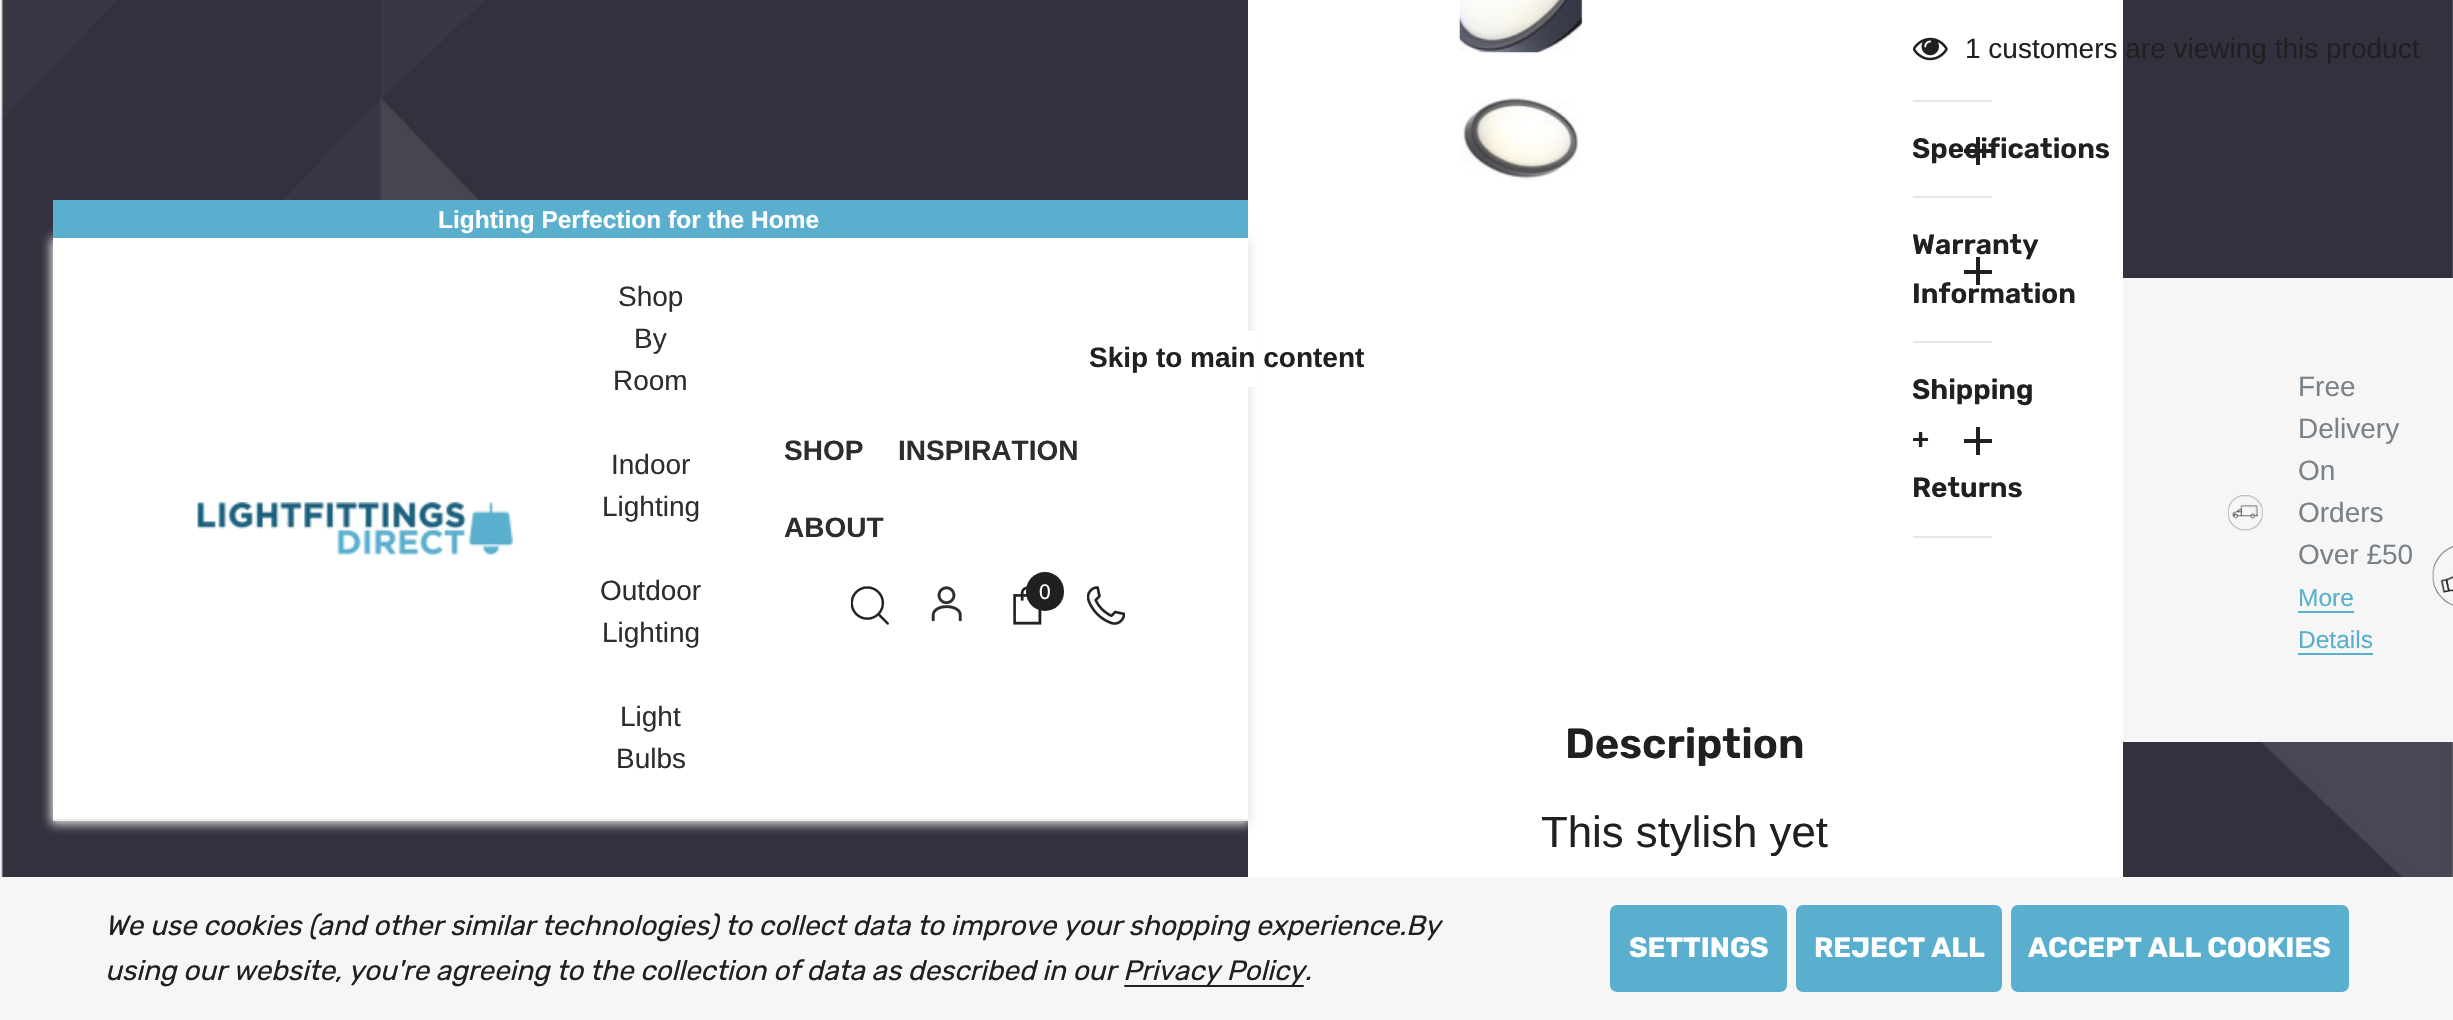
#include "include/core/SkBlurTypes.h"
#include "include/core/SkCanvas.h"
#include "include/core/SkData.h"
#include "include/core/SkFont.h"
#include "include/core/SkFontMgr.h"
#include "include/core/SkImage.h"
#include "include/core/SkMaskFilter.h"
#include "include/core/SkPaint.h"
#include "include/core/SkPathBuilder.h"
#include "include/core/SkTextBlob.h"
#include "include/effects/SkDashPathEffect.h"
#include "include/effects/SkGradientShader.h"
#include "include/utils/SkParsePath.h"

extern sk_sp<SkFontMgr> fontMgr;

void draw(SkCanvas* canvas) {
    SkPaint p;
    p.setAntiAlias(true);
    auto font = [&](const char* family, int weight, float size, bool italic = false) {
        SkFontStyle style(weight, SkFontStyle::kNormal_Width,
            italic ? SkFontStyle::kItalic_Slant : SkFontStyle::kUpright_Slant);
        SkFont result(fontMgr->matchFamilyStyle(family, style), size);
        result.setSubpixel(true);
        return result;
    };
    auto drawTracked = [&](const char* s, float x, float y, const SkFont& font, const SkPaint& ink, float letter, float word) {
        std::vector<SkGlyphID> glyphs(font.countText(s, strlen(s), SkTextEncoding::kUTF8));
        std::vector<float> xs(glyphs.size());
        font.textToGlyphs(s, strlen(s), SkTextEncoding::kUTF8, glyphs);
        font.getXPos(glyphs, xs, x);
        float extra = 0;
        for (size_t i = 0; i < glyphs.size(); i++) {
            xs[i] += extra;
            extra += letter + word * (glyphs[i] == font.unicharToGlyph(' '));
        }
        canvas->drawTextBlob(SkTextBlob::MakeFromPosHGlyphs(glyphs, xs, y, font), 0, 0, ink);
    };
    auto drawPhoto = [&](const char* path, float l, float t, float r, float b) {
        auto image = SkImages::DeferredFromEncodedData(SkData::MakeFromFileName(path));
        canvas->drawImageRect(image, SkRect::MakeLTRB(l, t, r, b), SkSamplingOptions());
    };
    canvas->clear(0xFFFFFFFF);
    drawPhoto("media/1.png", 0, 0, 2453, 877);
    p.setColor(0xFFFFFFFF);
    canvas->drawRect(SkRect::MakeLTRB(53, 238, 1248, 819), p);
    canvas->drawRect(SkRect::MakeLTRB(1248, 0, 2123, 877), p);
    canvas->save();
    canvas->clipPath(SkPathBuilder(SkPathFillType::kEvenOdd).moveTo(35, 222).lineTo(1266, 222).lineTo(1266, 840).lineTo(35, 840).close().moveTo(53, 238).lineTo(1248, 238).lineTo(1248, 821).lineTo(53, 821).close().detach(), true);
    p.setColor(0xFFE5E5E5);
    p.setMaskFilter(SkMaskFilter::MakeBlur(kNormal_SkBlurStyle, 5));
    canvas->drawRect(SkRect::MakeLTRB(51, 238, 1250, 824), p);
    p.setMaskFilter(nullptr);
    canvas->restore();
    p.setColor(0xFF59AFCD);
    canvas->drawRect(SkRect::MakeLTRB(53, 200, 1248, 238), p);
    auto font1 = font("Liberation Sans", 700, 24.5f);
    p.setColor(0xFFFFFFFF);
    canvas->drawString("Lighting Perfection for the Home", 438, 228, font1, p);
    p.setColor(0xFFEBEBEB);
    canvas->drawRect(SkRect::MakeLTRB(53, 819, 1248, 821), p);
    drawPhoto("media/2.png", 197, 502, 513, 555);
    auto font2 = font("Liberation Sans", 400, 28);
    p.setColor(0xFF2D2D2D);
    {
        const struct { const char* s; float x, y; } items[] = {
            {"Shop", 618, 306},
            {"By", 634, 348},
            {"Room", 613, 390},
            {"Indoor", 611, 474},
            {"Lighting", 602, 516},
            {"Outdoor", 600, 600},
            {"Lighting", 602, 642},
            {"Light", 620, 726},
            {"Bulbs", 616, 768},
        };
        for (auto [s, x, y] : items) {
            canvas->drawString(s, x, y, font2, p);
        }
    }
    auto font3 = font("Liberation Sans", 700, 28);
    {
        const struct { const char* s; float x, y; } items[] = {
            {"SHOP", 784, 460},
            {"INSPIRATION", 898, 460},
            {"ABOUT", 784, 537},
        };
        for (auto [s, x, y] : items) {
            canvas->drawString(s, x, y, font3, p);
        }
    }
    drawPhoto("media/3.png", 851, 586, 889, 625);
    drawPhoto("media/4.png", 931, 586, 962, 622);
    drawPhoto("media/5.png", 1013, 586, 1042, 625);
    p.setColor(0xFF202020);
    canvas->drawRoundRect(SkRect::MakeLTRB(1026, 572, 1064, 611), 19, 19, p);
    auto font4 = font("Liberation Sans", 400, 21);
    p.setColor(0xFFFFFFFF);
    canvas->drawString("0", 1039, 599, font4, p);
    drawPhoto("media/6.png", 1087, 586, 1125, 625);
    canvas->drawRect(SkRect::MakeLTRB(1247, 331, 1256, 387), p);
    p.setColor(0xFF202020);
    canvas->drawString("Skip to main content", 1089, 367, font3, p);
    drawPhoto("media/7.png", 1459, 0, 1583, 53);
    drawPhoto("media/8.png", 1460, 96, 1581, 181);
    drawPhoto("media/9.png", 1913, 37, 1948, 61);
    canvas->drawString("1 customers are viewing this product", 1965, 58, font2, p);
    p.setColor(0xFFE6E6E6);
    canvas->drawRect(SkRect::MakeLTRB(1913, 100, 1992, 102), p);
    auto font5 = font("Rubik", 600, 28);
    p.setColor(0xFF202020);
    canvas->drawString("Specifications", 1912, 158, font5, p);
    {
        const struct { float l, t, r, b; SkColor color; } items[] = {
            {1976, 137, 1980, 165, 0xFF202020},
            {1964, 149, 1992, 153, 0xFF202020},
            {1913, 196, 1992, 198, 0xFFE6E6E6},
        };
        for (auto [l, t, r, b, color] : items) {
            p.setColor(color);
            canvas->drawRect(SkRect::MakeLTRB(l, t, r, b), p);
        }
    }
    p.setColor(0xFF202020);
    canvas->drawString("Warranty", 1912, 254, font5, p);
    canvas->drawRect(SkRect::MakeLTRB(1976, 257, 1980, 285), p);
    canvas->drawRect(SkRect::MakeLTRB(1964, 270, 1992, 274), p);
    canvas->drawString("Information", 1912, 303, font5, p);
    p.setColor(0xFFE6E6E6);
    canvas->drawRect(SkRect::MakeLTRB(1913, 341, 1992, 343), p);
    canvas->drawRect(SkRect::MakeLTRB(1913, 536, 1992, 538), p);
    p.setColor(0xFF202020);
    canvas->drawString("Shipping", 1912, 399, font5, p);
    canvas->drawString("+", 1912, 448, font5, p);
    canvas->drawRect(SkRect::MakeLTRB(1976, 427, 1980, 455), p);
    canvas->drawRect(SkRect::MakeLTRB(1964, 439, 1992, 443), p);
    canvas->drawString("Returns", 1912, 497, font5, p);
    auto font6 = font("Rubik", 600, 42);
    canvas->drawString("Description", 1565, 758, font6, p);
    auto font7 = font("Liberation Sans", 400, 43.75f);
    canvas->drawString("This stylish yet", 1541, 847, font7, p);
    p.setColor(0xFFF6F6F6);
    canvas->drawRect(SkRect::MakeLTRB(2123, 278, 2453, 742), p);
    drawPhoto("media/10.png", 2227, 495, 2263, 531);
    p.setColor(0xFF798289);
    {
        const struct { const char* s; float x, y; } items[] = {
            {"Free", 2298, 396},
            {"Delivery", 2298, 438},
            {"On", 2298, 480},
            {"Orders", 2298, 522},
            {"Over £50", 2298, 564},
        };
        for (auto [s, x, y] : items) {
            canvas->drawString(s, x, y, font2, p);
        }
    }
    auto font8 = font("Liberation Sans", 400, 24.5f);
    p.setColor(0xFF59AFCD);
    canvas->drawString("More", 2298, 606, font8, p);
    canvas->drawRect(SkRect::MakeLTRB(2298, 611, 2354, 613), p);
    canvas->drawString("Details", 2298, 648, font8, p);
    canvas->drawRect(SkRect::MakeLTRB(2298, 653, 2373, 655), p);
    drawPhoto("media/11.png", 2432, 546, 2453, 606);
    p.setColor(0xFFF6F6F6);
    canvas->drawRect(SkRect::MakeLTRB(0, 877, 2453, 1020), p);
    auto font9 = font("Rubik", 400, 28, true);
    p.setColor(0xFF202020);
    drawTracked("We use cookies (and other similar technologies) to collect data to improve your shopping experience.By", 105, 935, font9, p, -0.09f, 0);
    drawTracked("using our website, you're agreeing to the collection of data as described in our", 105, 980, font9, p, -0.09f, 0);
    canvas->drawRoundRect(SkRect::MakeLTRB(1124, 985, 1304, 987), 1, 1, p);
    drawTracked("Privacy Policy.", 1123, 980, font9, p, -0.09f, 0);
    p.setColor(0xFF59AFCD);
    canvas->drawRoundRect(SkRect::MakeLTRB(1611, 906, 1786, 991), 6, 6, p);
    p.setStyle(SkPaint::kStroke_Style);
    p.setStrokeWidth(2);
    canvas->drawRoundRect(SkRect::MakeLTRB(1611, 906, 1786, 991), 6, 6, p);
    auto font10 = font("Rubik", 700, 28);
    p.setStyle(SkPaint::kFill_Style);
    p.setColor(0xFFFFFFFF);
    canvas->drawString("SETTINGS", 1629, 957, font10, p);
    p.setColor(0xFF59AFCD);
    canvas->drawRoundRect(SkRect::MakeLTRB(1796, 905, 2002, 992), 7, 7, p);
    p.setColor(0xFFFFFFFF);
    canvas->drawString("REJECT ALL", 1814, 957, font10, p);
    p.setColor(0xFF59AFCD);
    canvas->drawRoundRect(SkRect::MakeLTRB(2011, 905, 2349, 992), 7, 7, p);
    p.setColor(0xFFFFFFFF);
    canvas->drawString("ACCEPT ALL COOKIES", 2028, 957, font10, p);
}
